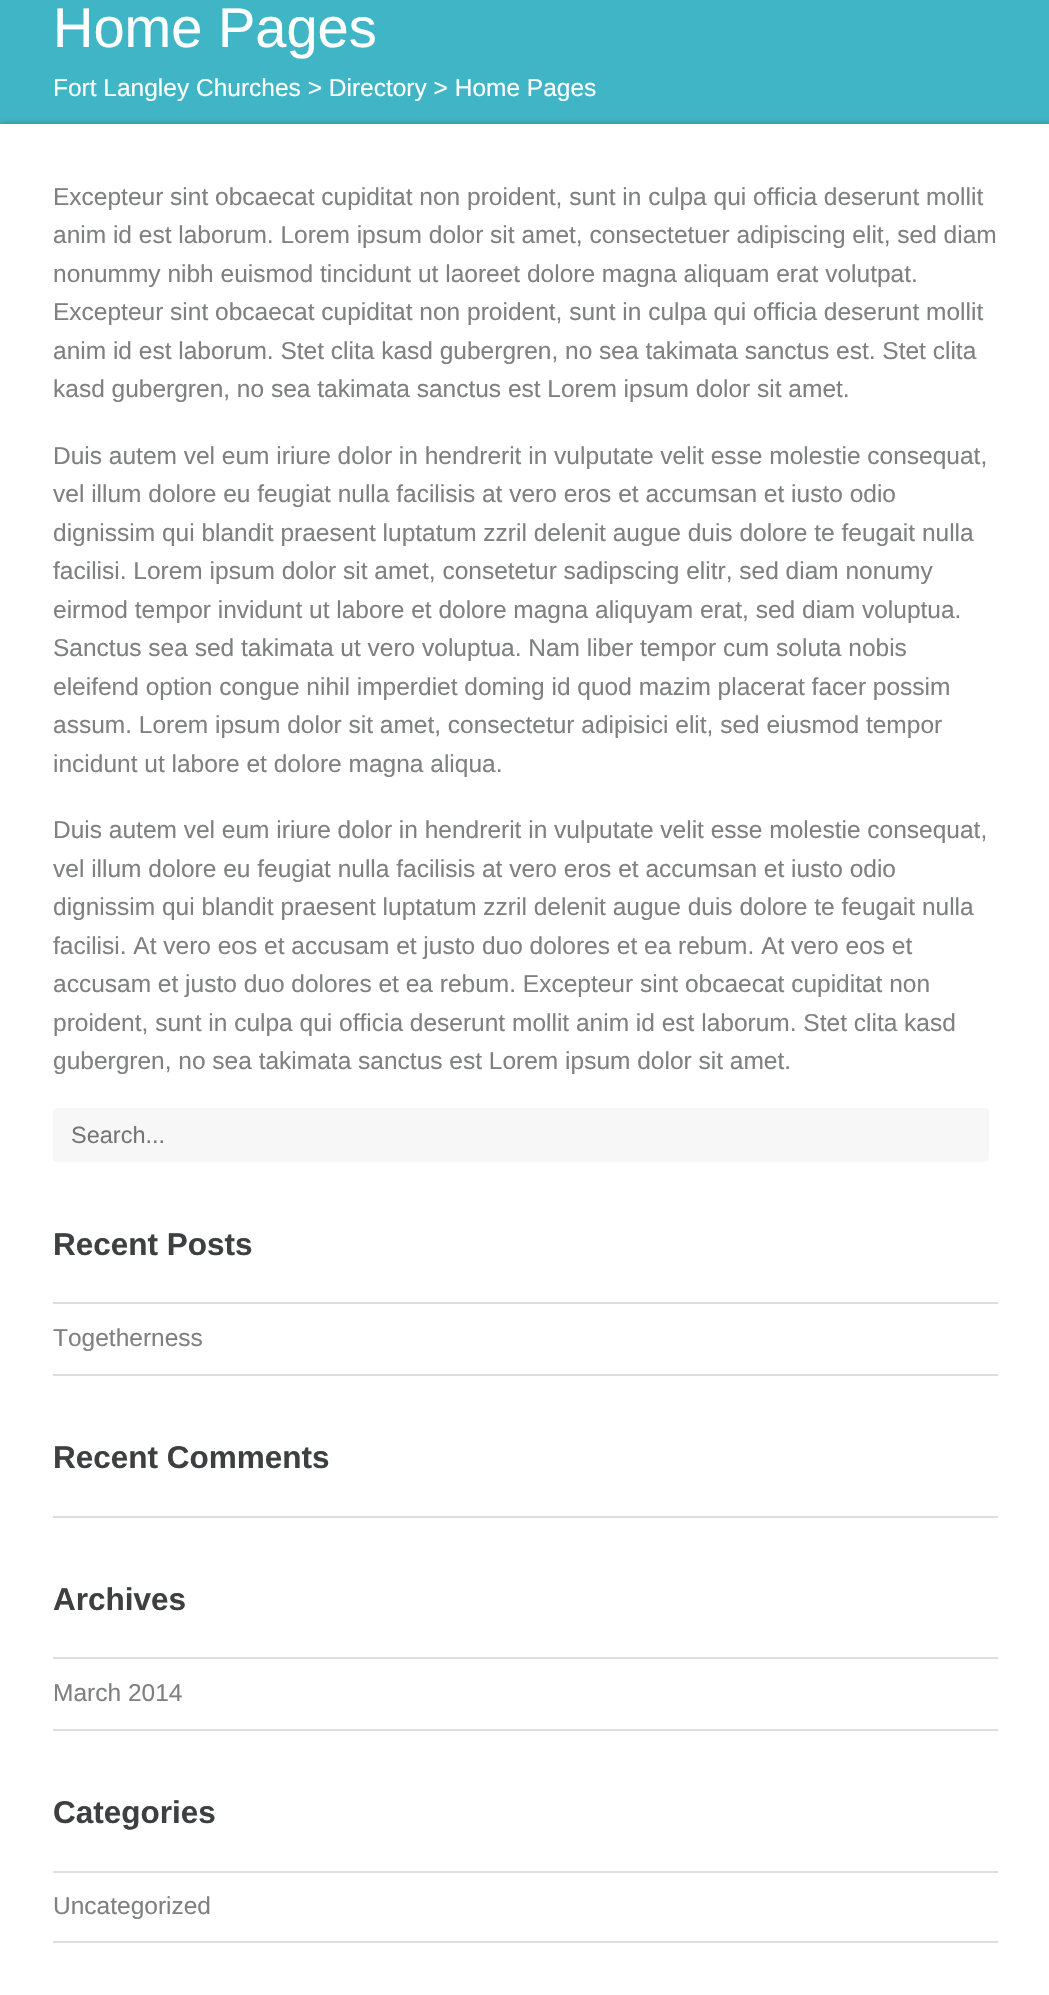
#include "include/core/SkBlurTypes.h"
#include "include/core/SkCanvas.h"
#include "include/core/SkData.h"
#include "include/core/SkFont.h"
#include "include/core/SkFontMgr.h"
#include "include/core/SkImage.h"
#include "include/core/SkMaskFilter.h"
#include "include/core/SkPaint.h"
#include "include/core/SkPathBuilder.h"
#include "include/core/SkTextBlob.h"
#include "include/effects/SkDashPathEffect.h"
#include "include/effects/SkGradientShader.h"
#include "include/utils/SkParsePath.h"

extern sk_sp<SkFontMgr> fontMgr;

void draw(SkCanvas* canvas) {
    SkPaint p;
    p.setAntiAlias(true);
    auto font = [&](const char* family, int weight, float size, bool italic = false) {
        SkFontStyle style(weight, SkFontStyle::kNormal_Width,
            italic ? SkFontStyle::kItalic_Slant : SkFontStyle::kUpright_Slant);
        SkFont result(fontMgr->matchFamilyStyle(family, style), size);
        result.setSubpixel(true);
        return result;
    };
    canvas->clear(0xFFFFFFFF);
    p.setColor(0xFF3FB5C6);
    canvas->drawRect(SkRect::MakeLTRB(0, 0, 1049, 124), p);
    auto font1 = font("Liberation Sans", 400, 56);
    p.setColor(0xFFFFFFFF);
    canvas->drawString("Home Pages", 53, 47, font1, p);
    auto font2 = font("Liberation Sans", 400, 24.5f);
    canvas->drawString("Fort Langley Churches > Directory > Home Pages", 53, 96, font2, p);
    canvas->save();
    canvas->clipRect(SkRect::MakeLTRB(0, 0, 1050, 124));
    p.setColor(0x33000000);
    p.setMaskFilter(SkMaskFilter::MakeBlur(kNormal_SkBlurStyle, 2.5f));
    canvas->drawRect(SkRect::MakeLTRB(0, 123, 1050, 140), p);
    p.setMaskFilter(nullptr);
    canvas->restore();
    p.setColor(0xFF7F8080);
    {
        const struct { const char* s; float x, y; } items[] = {
            {"Excepteur sint obcaecat cupiditat non proident, sunt in culpa qui officia deserunt mollit", 53, 205},
            {"anim id est laborum. Lorem ipsum dolor sit amet, consectetuer adipiscing elit, sed diam", 53, 243},
            {"nonummy nibh euismod tincidunt ut laoreet dolore magna aliquam erat volutpat.", 53, 282},
            {"Excepteur sint obcaecat cupiditat non proident, sunt in culpa qui officia deserunt mollit", 53, 320},
            {"anim id est laborum. Stet clita kasd gubergren, no sea takimata sanctus est. Stet clita", 53, 359},
            {"kasd gubergren, no sea takimata sanctus est Lorem ipsum dolor sit amet.", 53, 397},
            {"Duis autem vel eum iriure dolor in hendrerit in vulputate velit esse molestie consequat,", 53, 464},
            {"vel illum dolore eu feugiat nulla facilisis at vero eros et accumsan et iusto odio", 53, 502},
            {"dignissim qui blandit praesent luptatum zzril delenit augue duis dolore te feugait nulla", 53, 541},
            {"facilisi. Lorem ipsum dolor sit amet, consetetur sadipscing elitr, sed diam nonumy", 53, 579},
            {"eirmod tempor invidunt ut labore et dolore magna aliquyam erat, sed diam voluptua.", 53, 618},
            {"Sanctus sea sed takimata ut vero voluptua. Nam liber tempor cum soluta nobis", 53, 656},
            {"eleifend option congue nihil imperdiet doming id quod mazim placerat facer possim", 53, 695},
            {"assum. Lorem ipsum dolor sit amet, consectetur adipisici elit, sed eiusmod tempor", 53, 733},
            {"incidunt ut labore et dolore magna aliqua.", 53, 772},
            {"Duis autem vel eum iriure dolor in hendrerit in vulputate velit esse molestie consequat,", 53, 838},
            {"vel illum dolore eu feugiat nulla facilisis at vero eros et accumsan et iusto odio", 53, 877},
            {"dignissim qui blandit praesent luptatum zzril delenit augue duis dolore te feugait nulla", 53, 915},
            {"facilisi. At vero eos et accusam et justo duo dolores et ea rebum. At vero eos et", 53, 954},
            {"accusam et justo duo dolores et ea rebum. Excepteur sint obcaecat cupiditat non", 53, 992},
            {"proident, sunt in culpa qui officia deserunt mollit anim id est laborum. Stet clita kasd", 53, 1031},
            {"gubergren, no sea takimata sanctus est Lorem ipsum dolor sit amet.", 53, 1069},
        };
        for (auto [s, x, y] : items) {
            canvas->drawString(s, x, y, font2, p);
        }
    }
    p.setColor(0xFFF7F7F7);
    canvas->drawRoundRect(SkRect::MakeLTRB(53, 1108, 989, 1162), 4, 4, p);
    auto font3 = font("Liberation Sans", 400, 23.5f);
    p.setColor(0xFF757575);
    canvas->drawString("Search...", 71, 1143, font3, p);
    auto font4 = font("Liberation Sans", 700, 31.5f);
    p.setColor(0xFF3E3F40);
    canvas->drawString("Recent Posts", 53, 1255, font4, p);
    p.setColor(0xFFDEDEDF);
    canvas->drawRect(SkRect::MakeLTRB(53, 1302, 998, 1304), p);
    canvas->drawRect(SkRect::MakeLTRB(53, 1374, 998, 1376), p);
    p.setColor(0xFF7F8080);
    canvas->drawString("Togetherness", 53, 1346, font2, p);
    p.setColor(0xFF3E3F40);
    canvas->drawString("Recent Comments", 53, 1468, font4, p);
    p.setColor(0xFFDEDEDF);
    canvas->drawRect(SkRect::MakeLTRB(53, 1516, 998, 1518), p);
    p.setColor(0xFF3E3F40);
    canvas->drawString("Archives", 53, 1610, font4, p);
    p.setColor(0xFFDEDEDF);
    canvas->drawRect(SkRect::MakeLTRB(53, 1657, 998, 1659), p);
    canvas->drawRect(SkRect::MakeLTRB(53, 1729, 998, 1731), p);
    p.setColor(0xFF7F8080);
    canvas->drawString("March 2014", 53, 1701, font2, p);
    p.setColor(0xFF3E3F40);
    canvas->drawString("Categories", 53, 1823, font4, p);
    p.setColor(0xFFDEDEDF);
    canvas->drawRect(SkRect::MakeLTRB(53, 1871, 998, 1873), p);
    canvas->drawRect(SkRect::MakeLTRB(53, 1941, 998, 1943), p);
    p.setColor(0xFF7F8080);
    canvas->drawString("Uncategorized", 53, 1914, font2, p);
}
